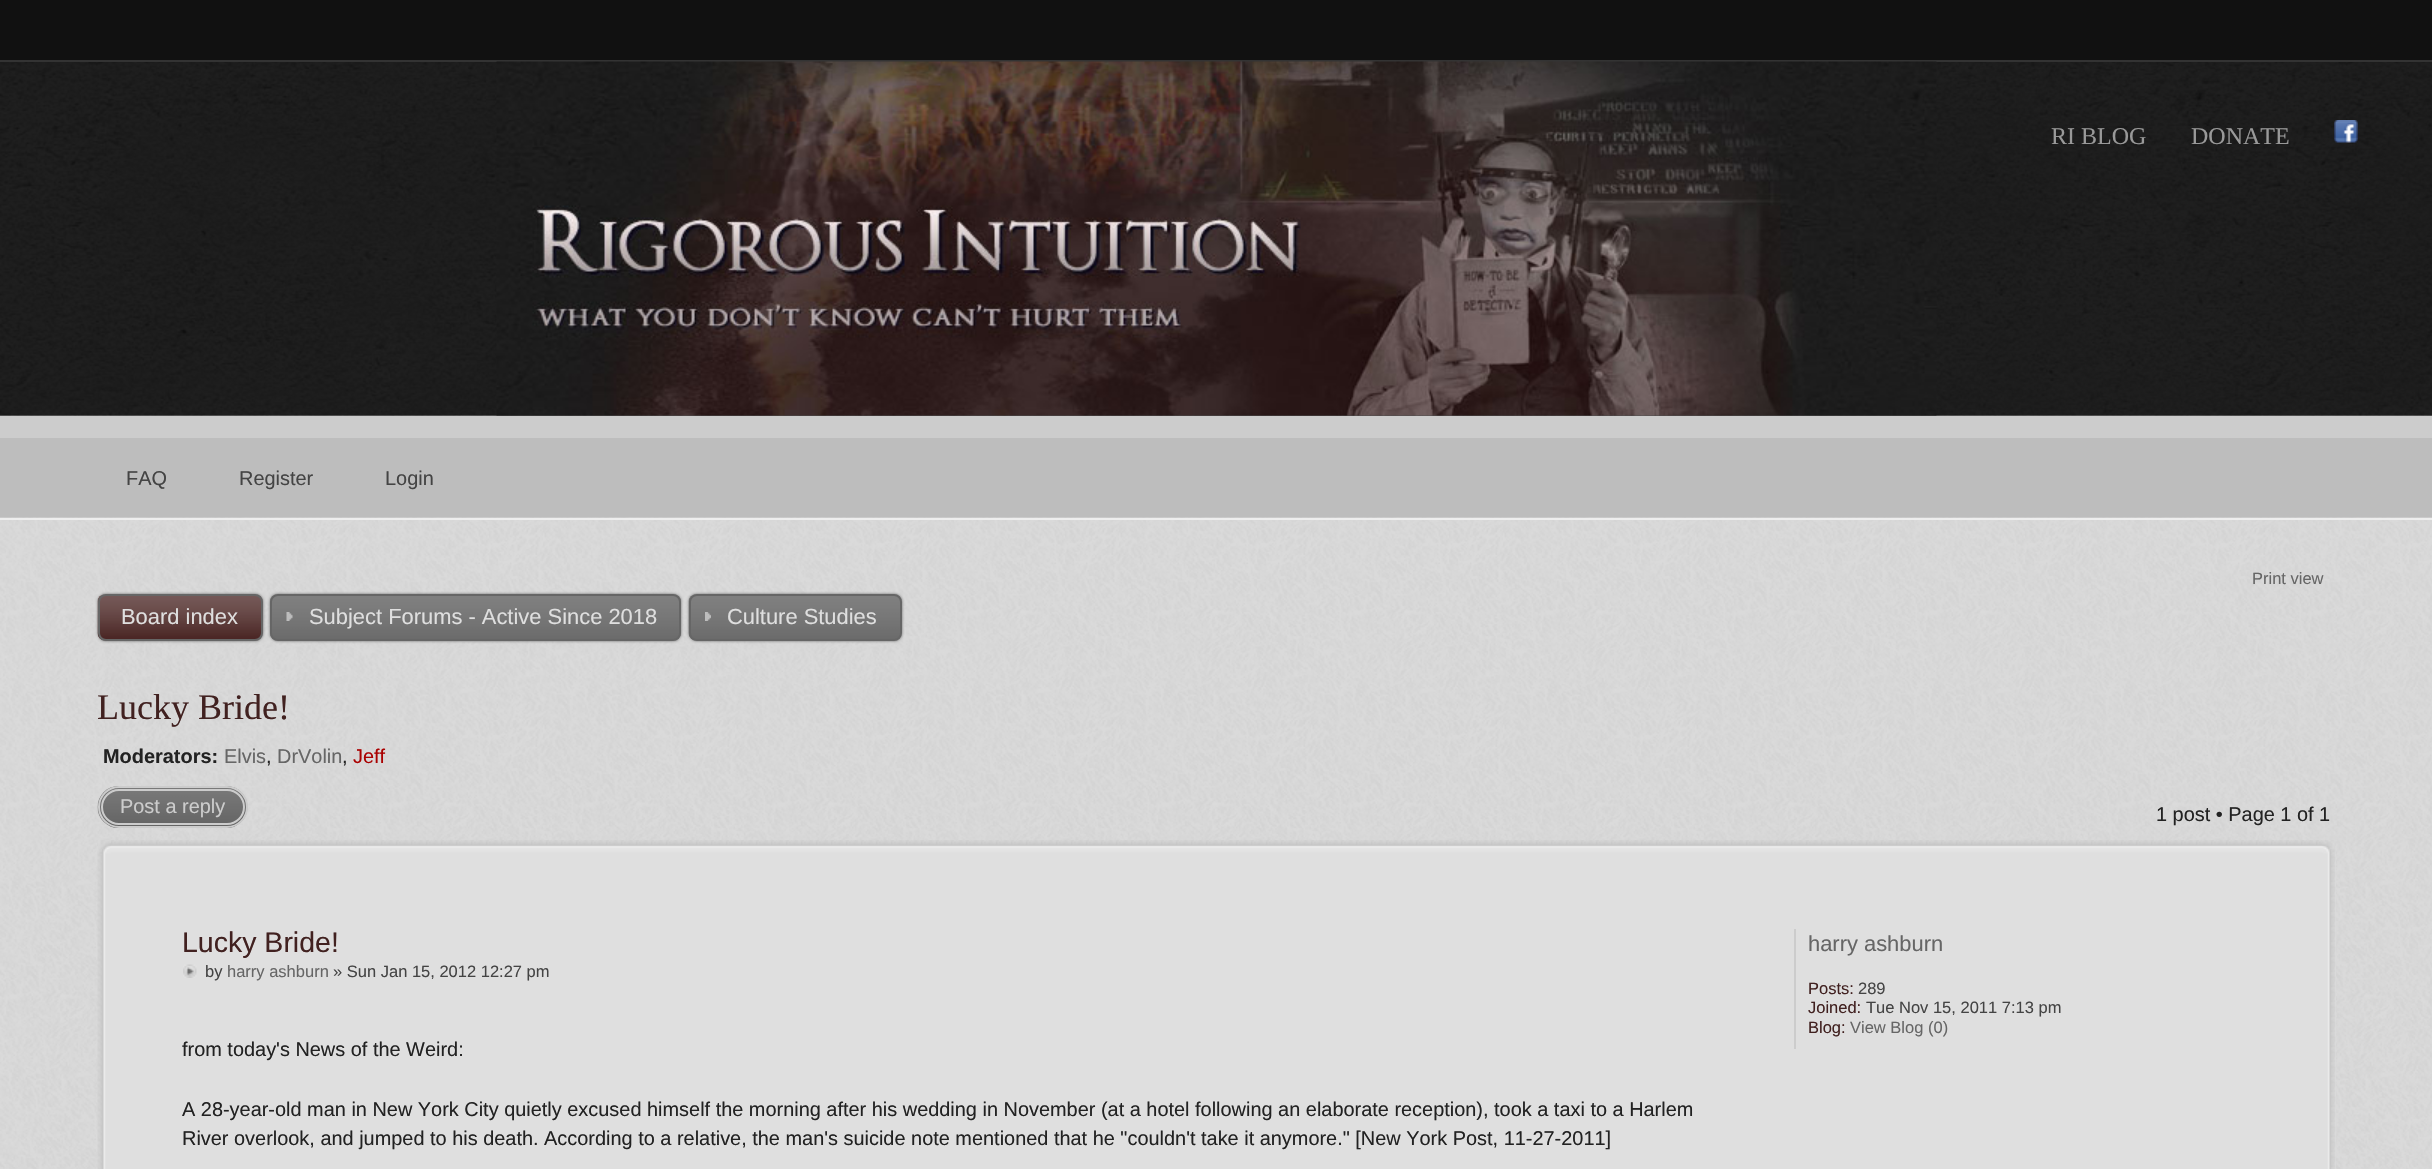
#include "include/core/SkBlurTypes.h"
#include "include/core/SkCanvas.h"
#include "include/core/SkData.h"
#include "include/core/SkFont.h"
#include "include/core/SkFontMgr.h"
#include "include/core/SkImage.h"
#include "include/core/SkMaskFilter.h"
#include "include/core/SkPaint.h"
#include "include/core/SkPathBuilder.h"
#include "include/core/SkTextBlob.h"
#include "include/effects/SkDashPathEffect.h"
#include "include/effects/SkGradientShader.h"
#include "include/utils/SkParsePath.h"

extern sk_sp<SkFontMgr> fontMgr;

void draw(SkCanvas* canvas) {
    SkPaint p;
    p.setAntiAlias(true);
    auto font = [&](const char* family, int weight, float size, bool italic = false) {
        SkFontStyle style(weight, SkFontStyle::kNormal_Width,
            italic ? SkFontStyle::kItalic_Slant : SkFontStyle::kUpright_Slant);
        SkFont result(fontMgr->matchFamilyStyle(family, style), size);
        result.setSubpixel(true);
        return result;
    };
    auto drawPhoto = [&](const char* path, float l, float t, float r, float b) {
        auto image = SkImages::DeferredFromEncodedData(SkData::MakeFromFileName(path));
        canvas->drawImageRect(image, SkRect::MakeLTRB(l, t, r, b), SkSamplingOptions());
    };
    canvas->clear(0xFFFFFFFF);
    drawPhoto("media/1.png", 0, 415, 2432, 416);
    p.setColor(0xFF111111);
    canvas->drawRect(SkRect::MakeLTRB(0, 0, 2432, 60), p);
    drawPhoto("media/2.png", 0, 62, 2432, 416);
    p.setColor(0xFF333333);
    canvas->drawRect(SkRect::MakeLTRB(0, 60, 2432, 62), p);
    drawPhoto("media/3.png", 496, 61, 1937, 416);
    auto font1 = font("Liberation Serif", 400, 24);
    p.setColor(0xFF999999);
    canvas->drawString("RI BLOG", 2051, 144, font1, p);
    canvas->drawString("DONATE", 2191, 144, font1, p);
    drawPhoto("media/4.png", 2334, 120, 2358, 143);
    p.setColor(0xFFBDBDBD);
    canvas->drawRect(SkRect::MakeLTRB(0, 438, 2432, 518), p);
    p.setColor(0xFFCCCCCC);
    canvas->drawRect(SkRect::MakeLTRB(0, 416, 2432, 438), p);
    auto font2 = font("Liberation Sans", 400, 19.92f);
    p.setColor(0xFF444444);
    {
        const struct { const char* s; float x, y; } items[] = {
            {"FAQ", 126, 485},
            {"Register", 239, 485},
            {"Login", 385, 485},
        };
        for (auto [s, x, y] : items) {
            canvas->drawString(s, x, y, font2, p);
        }
    }
    drawPhoto("media/5.png", 0, 517, 2432, 1169);
    p.setColor(0xFFEEEEEE);
    canvas->drawRect(SkRect::MakeLTRB(0, 518, 2432, 520), p);
    auto font3 = font("Liberation Sans", 400, 16.5f);
    p.setColor(0xFF666666);
    canvas->drawString("Print view", 2252, 584, font3, p);
    p.setMaskFilter(SkMaskFilter::MakeBlur(kNormal_SkBlurStyle, 1.5f));
    canvas->drawRoundRect(SkRect::MakeLTRB(98, 594, 263, 641), 8, 8, p);
    p.setMaskFilter(nullptr);
    drawPhoto("media/6.png", 97, 595, 263, 641);
    p.setStyle(SkPaint::kStroke_Style);
    p.setStrokeWidth(2);
    canvas->drawRoundRect(SkRect::MakeLTRB(99, 595, 262, 640), 7, 7, p);
    auto font4 = font("Liberation Sans", 400, 21.9f);
    p.setStyle(SkPaint::kFill_Style);
    p.setColor(0xFFDFDFDF);
    canvas->drawString("Board index", 121, 624, font4, p);
    p.setColor(0xFF666666);
    p.setMaskFilter(SkMaskFilter::MakeBlur(kNormal_SkBlurStyle, 1.5f));
    canvas->drawRoundRect(SkRect::MakeLTRB(270, 594, 681, 641), 8, 8, p);
    p.setMaskFilter(nullptr);
    drawPhoto("media/7.png", 270, 595, 681, 640);
    p.setStyle(SkPaint::kStroke_Style);
    canvas->drawRoundRect(SkRect::MakeLTRB(271, 595, 680, 640), 7, 7, p);
    drawPhoto("media/8.png", 286, 612, 293, 621);
    p.setStyle(SkPaint::kFill_Style);
    p.setColor(0xFFDFDFDF);
    canvas->drawString("Subject Forums - Active Since 2018", 309, 624, font4, p);
    p.setColor(0xFF666666);
    p.setMaskFilter(SkMaskFilter::MakeBlur(kNormal_SkBlurStyle, 1.5f));
    canvas->drawRoundRect(SkRect::MakeLTRB(689, 594, 902, 641), 8, 8, p);
    p.setMaskFilter(nullptr);
    drawPhoto("media/9.png", 688, 595, 902, 640);
    p.setStyle(SkPaint::kStroke_Style);
    canvas->drawRoundRect(SkRect::MakeLTRB(690, 595, 901, 640), 7, 7, p);
    drawPhoto("media/10.png", 705, 612, 711, 621);
    p.setStyle(SkPaint::kFill_Style);
    p.setColor(0xFFDFDFDF);
    canvas->drawString("Culture Studies", 727, 624, font4, p);
    auto font5 = font("Liberation Serif", 400, 36);
    p.setColor(0xFF412120);
    canvas->drawString("Lucky Bride!", 97, 719, font5, p);
    auto font6 = font("Liberation Sans", 700, 19.92f);
    p.setColor(0xFF222222);
    canvas->drawString("Moderators:", 103, 763, font6, p);
    p.setColor(0xFF666666);
    canvas->drawString("Elvis", 224, 763, font2, p);
    p.setColor(0xFF222222);
    canvas->drawString(",", 266, 763, font2, p);
    p.setColor(0xFF666666);
    canvas->drawString("DrVolin", 277, 763, font2, p);
    p.setColor(0xFF222222);
    canvas->drawString(",", 342, 763, font2, p);
    p.setColor(0xFFAA0000);
    canvas->drawString("Jeff", 353, 763, font2, p);
    drawPhoto("media/11.png", 97, 786, 248, 828);
    p.setStyle(SkPaint::kStroke_Style);
    p.setColor(0xFFCCCCCC);
    canvas->drawRoundRect(SkRect::MakeLTRB(99, 787, 247, 827), 20, 20, p);
    canvas->drawRoundRect(SkRect::MakeLTRB(102, 790, 244, 824), 17, 17, p);
    p.setStyle(SkPaint::kFill_Style);
    canvas->drawString("Post a reply", 120, 813, font2, p);
    p.setColor(0xFF222222);
    canvas->drawString("1 post • Page 1 of 1", 2156, 821, font2, p);
    p.setColor(0xFFDFDFDF);
    canvas->drawRect(SkRect::MakeLTRB(106, 840, 2336, 1169), p);
    drawPhoto("media/12.png", 97, 840, 2336, 1169);
    auto font7 = font("Liberation Sans", 400, 28.5f);
    p.setColor(0xFF412120);
    canvas->drawString("Lucky Bride!", 182, 952, font7, p);
    drawPhoto("media/13.png", 183, 964, 197, 978);
    p.setColor(0xFF444444);
    canvas->drawString("by", 205, 977, font3, p);
    p.setColor(0xFF666666);
    canvas->drawString("harry ashburn", 227, 977, font3, p);
    p.setColor(0xFF444444);
    canvas->drawString("» Sun Jan 15, 2012 12:27 pm", 333, 977, font3, p);
    p.setColor(0xFF222222);
    {
        const struct { const char* s; float x, y; } items[] = {
            {"from today's News of the Weird:", 182, 1056},
            {"A 28-year-old man in New York City quietly excused himself the morning after his wedding in November (at a hotel following an elaborate reception), took a taxi to a Harlem", 182, 1116},
            {"River overlook, and jumped to his death. According to a relative, the man's suicide note mentioned that he \"couldn't take it anymore.\" [New York Post, 11-27-2011]", 182, 1145},
        };
        for (auto [s, x, y] : items) {
            canvas->drawString(s, x, y, font2, p);
        }
    }
    p.setColor(0xFFCCCCCC);
    canvas->drawRect(SkRect::MakeLTRB(1794, 929, 1796, 1049), p);
    p.setColor(0xFF666666);
    canvas->drawString("harry ashburn", 1808, 951, font4, p);
    p.setColor(0xFF412120);
    canvas->drawString("Posts:", 1808, 994, font3, p);
    p.setColor(0xFF444444);
    canvas->drawString("289", 1858, 994, font3, p);
    p.setColor(0xFF412120);
    canvas->drawString("Joined:", 1808, 1013, font3, p);
    p.setColor(0xFF444444);
    canvas->drawString("Tue Nov 15, 2011 7:13 pm", 1866, 1013, font3, p);
    p.setColor(0xFF412120);
    canvas->drawString("Blog:", 1808, 1033, font3, p);
    p.setColor(0xFF666666);
    canvas->drawString("View Blog (0)", 1850, 1033, font3, p);
}
